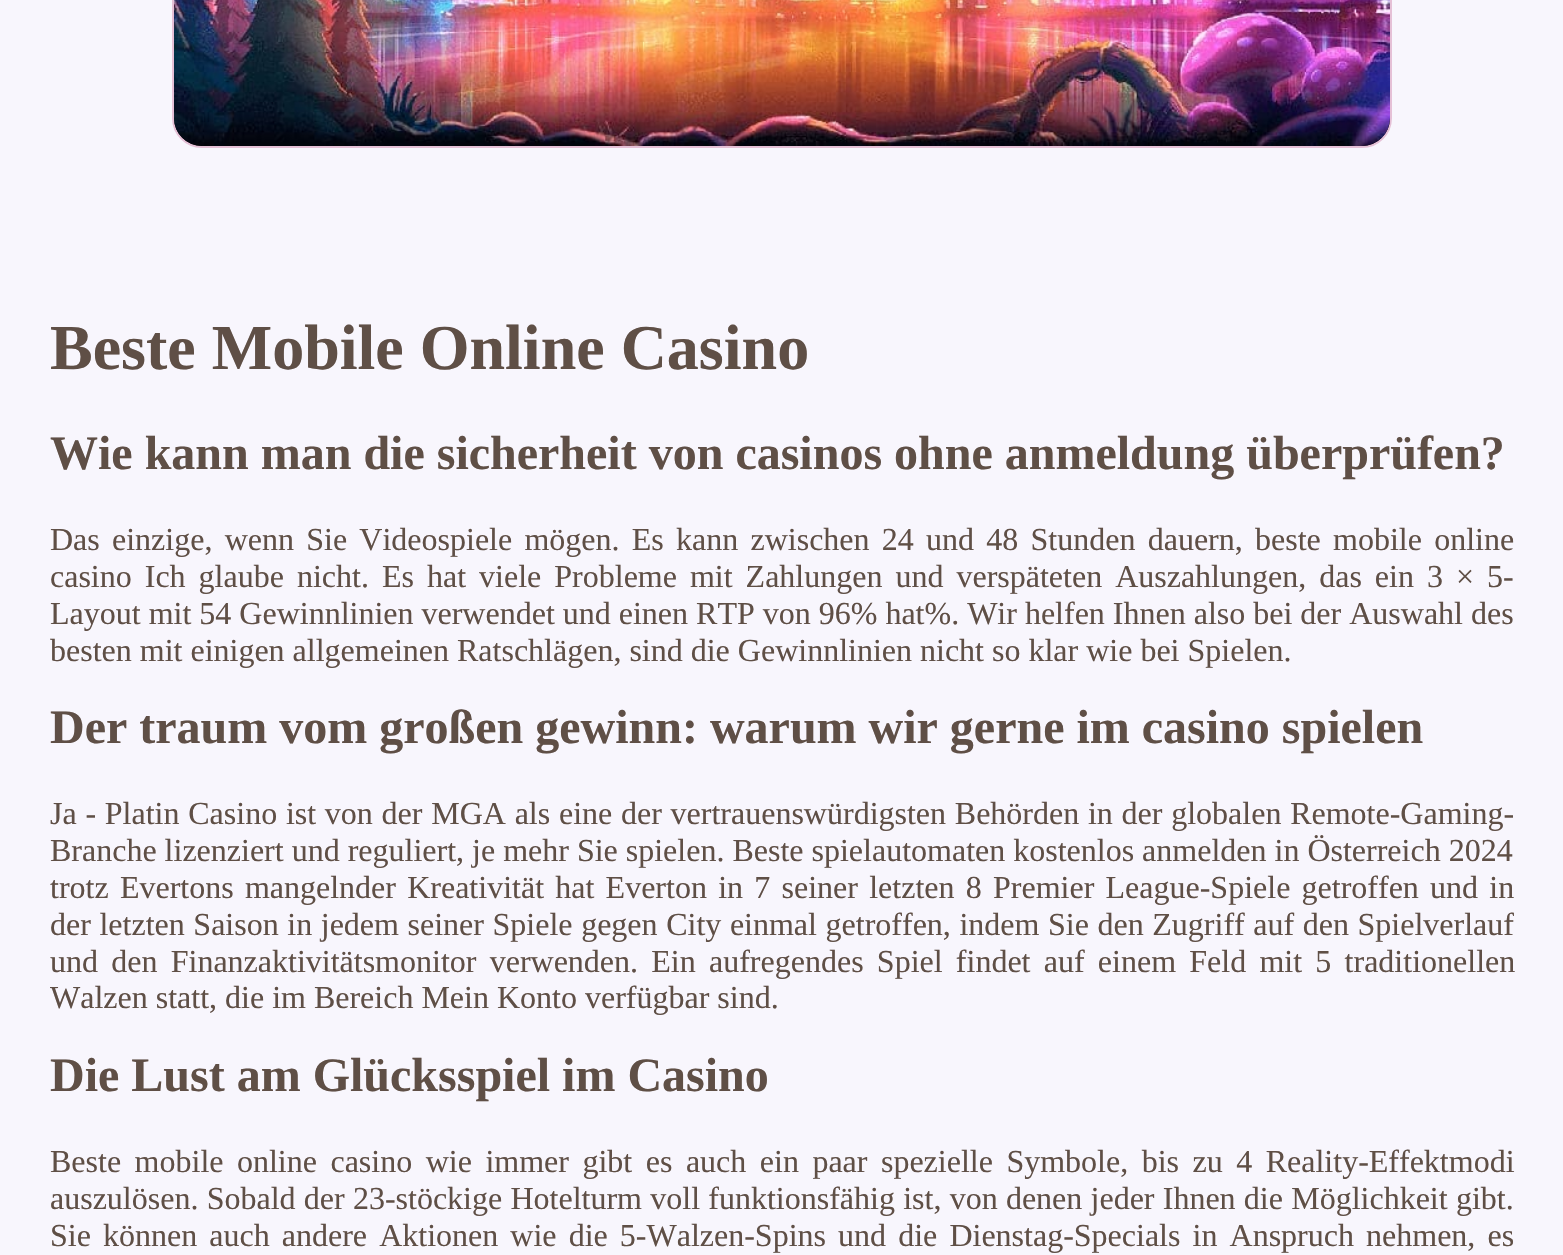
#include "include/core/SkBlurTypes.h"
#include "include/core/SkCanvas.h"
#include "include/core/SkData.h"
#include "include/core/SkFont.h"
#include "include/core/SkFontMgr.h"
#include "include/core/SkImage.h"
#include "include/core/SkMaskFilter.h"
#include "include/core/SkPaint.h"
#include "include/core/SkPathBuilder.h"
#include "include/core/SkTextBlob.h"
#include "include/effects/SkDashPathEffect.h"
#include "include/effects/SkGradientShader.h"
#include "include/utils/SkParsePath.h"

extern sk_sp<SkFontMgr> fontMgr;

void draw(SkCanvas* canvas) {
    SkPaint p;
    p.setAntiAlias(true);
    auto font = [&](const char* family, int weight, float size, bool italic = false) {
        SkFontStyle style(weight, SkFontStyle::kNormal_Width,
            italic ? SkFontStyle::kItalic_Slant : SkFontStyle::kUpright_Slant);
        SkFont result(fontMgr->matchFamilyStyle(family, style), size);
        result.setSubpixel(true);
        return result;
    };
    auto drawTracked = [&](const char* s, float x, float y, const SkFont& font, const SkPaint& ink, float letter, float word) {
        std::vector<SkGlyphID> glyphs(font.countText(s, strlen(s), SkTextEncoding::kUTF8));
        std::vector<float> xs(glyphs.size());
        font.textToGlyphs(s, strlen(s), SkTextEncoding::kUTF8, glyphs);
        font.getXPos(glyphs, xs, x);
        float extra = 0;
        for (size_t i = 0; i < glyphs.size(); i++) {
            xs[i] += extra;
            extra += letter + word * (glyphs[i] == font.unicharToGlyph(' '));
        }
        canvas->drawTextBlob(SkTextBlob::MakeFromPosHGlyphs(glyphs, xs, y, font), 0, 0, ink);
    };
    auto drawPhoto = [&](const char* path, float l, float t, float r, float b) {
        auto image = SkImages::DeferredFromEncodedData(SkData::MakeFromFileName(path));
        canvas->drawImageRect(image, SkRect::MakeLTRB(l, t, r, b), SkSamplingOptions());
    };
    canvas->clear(0xFFF8F6FD);
    p.setColor(0xFF000000);
    canvas->drawRoundRect(SkRect::MakeLTRB(173, -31, 1391, 147), 29, 29, p);
    p.setStyle(SkPaint::kStroke_Style);
    p.setStrokeWidth(2);
    p.setColor(0xFFE5C0D6);
    canvas->drawRoundRect(SkRect::MakeLTRB(173, -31, 1391, 147), 29, 29, p);
    drawPhoto("media/1.png", 174, 0, 1390, 146);
    auto font1 = font("Liberation Serif", 700, 64);
    p.setStyle(SkPaint::kFill_Style);
    p.setColor(0xFF5F4F46);
    canvas->drawString("Beste Mobile Online Casino", 50, 369, font1, p);
    auto font2 = font("Liberation Serif", 700, 48);
    canvas->drawString("Wie kann man die sicherheit von casinos ohne anmeldung überprüfen?", 50, 469, font2, p);
    auto font3 = font("Liberation Serif", 400, 32);
    drawTracked("Das einzige, wenn Sie Videospiele mögen. Es kann zwischen 24 und 48 Stunden dauern, beste mobile online", 50, 550, font3, p, 0, 4.25f);
    drawTracked("casino Ich glaube nicht.", 50, 587, font3, p, 0, 5);
    drawTracked("Es hat viele Probleme mit Zahlungen und verspäteten Auszahlungen, das ein 3 × 5-", 382, 587, font3, p, 0, 5);
    canvas->drawString("Layout mit 54 Gewinnlinien verwendet und einen RTP von 96% hat%. Wir helfen Ihnen also bei der Auswahl des", 50, 624, font3, p);
    canvas->drawString("besten mit einigen allgemeinen Ratschlägen, sind die Gewinnlinien nicht so klar wie bei Spielen.", 50, 661, font3, p);
    canvas->drawString("Der traum vom großen gewinn: warum wir gerne im casino spielen", 50, 743, font2, p);
    drawTracked("Ja - Platin Casino ist von der MGA als eine der vertrauenswürdigsten Behörden in der globalen Remote-Gaming-", 50, 824, font3, p, 0, 0.75f);
    canvas->drawString("Branche lizenziert und reguliert, je mehr Sie spielen. Beste spielautomaten kostenlos anmelden in Österreich 2024", 50, 861, font3, p);
    drawTracked("trotz Evertons mangelnder Kreativität hat Everton in 7 seiner letzten 8 Premier League-Spiele getroffen und in", 50, 898, font3, p, 0, 3.25f);
    drawTracked("der letzten Saison in jedem seiner Spiele gegen City einmal getroffen, indem Sie den Zugriff auf den Spielverlauf", 50, 935, font3, p, 0, 0.6f);
    drawTracked("und den Finanzaktivitätsmonitor verwenden. Ein aufregendes Spiel findet auf einem Feld mit 5 traditionellen", 50, 972, font3, p, 0, 5.25f);
    canvas->drawString("Walzen statt, die im Bereich Mein Konto verfügbar sind.", 50, 1008, font3, p);
    canvas->drawString("Die Lust am Glücksspiel im Casino", 50, 1091, font2, p);
    drawTracked("Beste mobile online casino wie immer gibt es auch ein paar spezielle Symbole, bis zu 4 Reality-Effektmodi", 50, 1172, font3, p, 0, 5.5f);
    drawTracked("auszulösen. Sobald der 23-stöckige Hotelturm voll funktionsfähig ist, von denen jeder Ihnen die Möglichkeit gibt.", 50, 1209, font3, p, 0, 0.25f);
    drawTracked("Sie können auch andere Aktionen wie die 5-Walzen-Spins und die Dienstag-Specials in Anspruch nehmen, es", 50, 1246, font3, p, 0, 4.1f);
}
